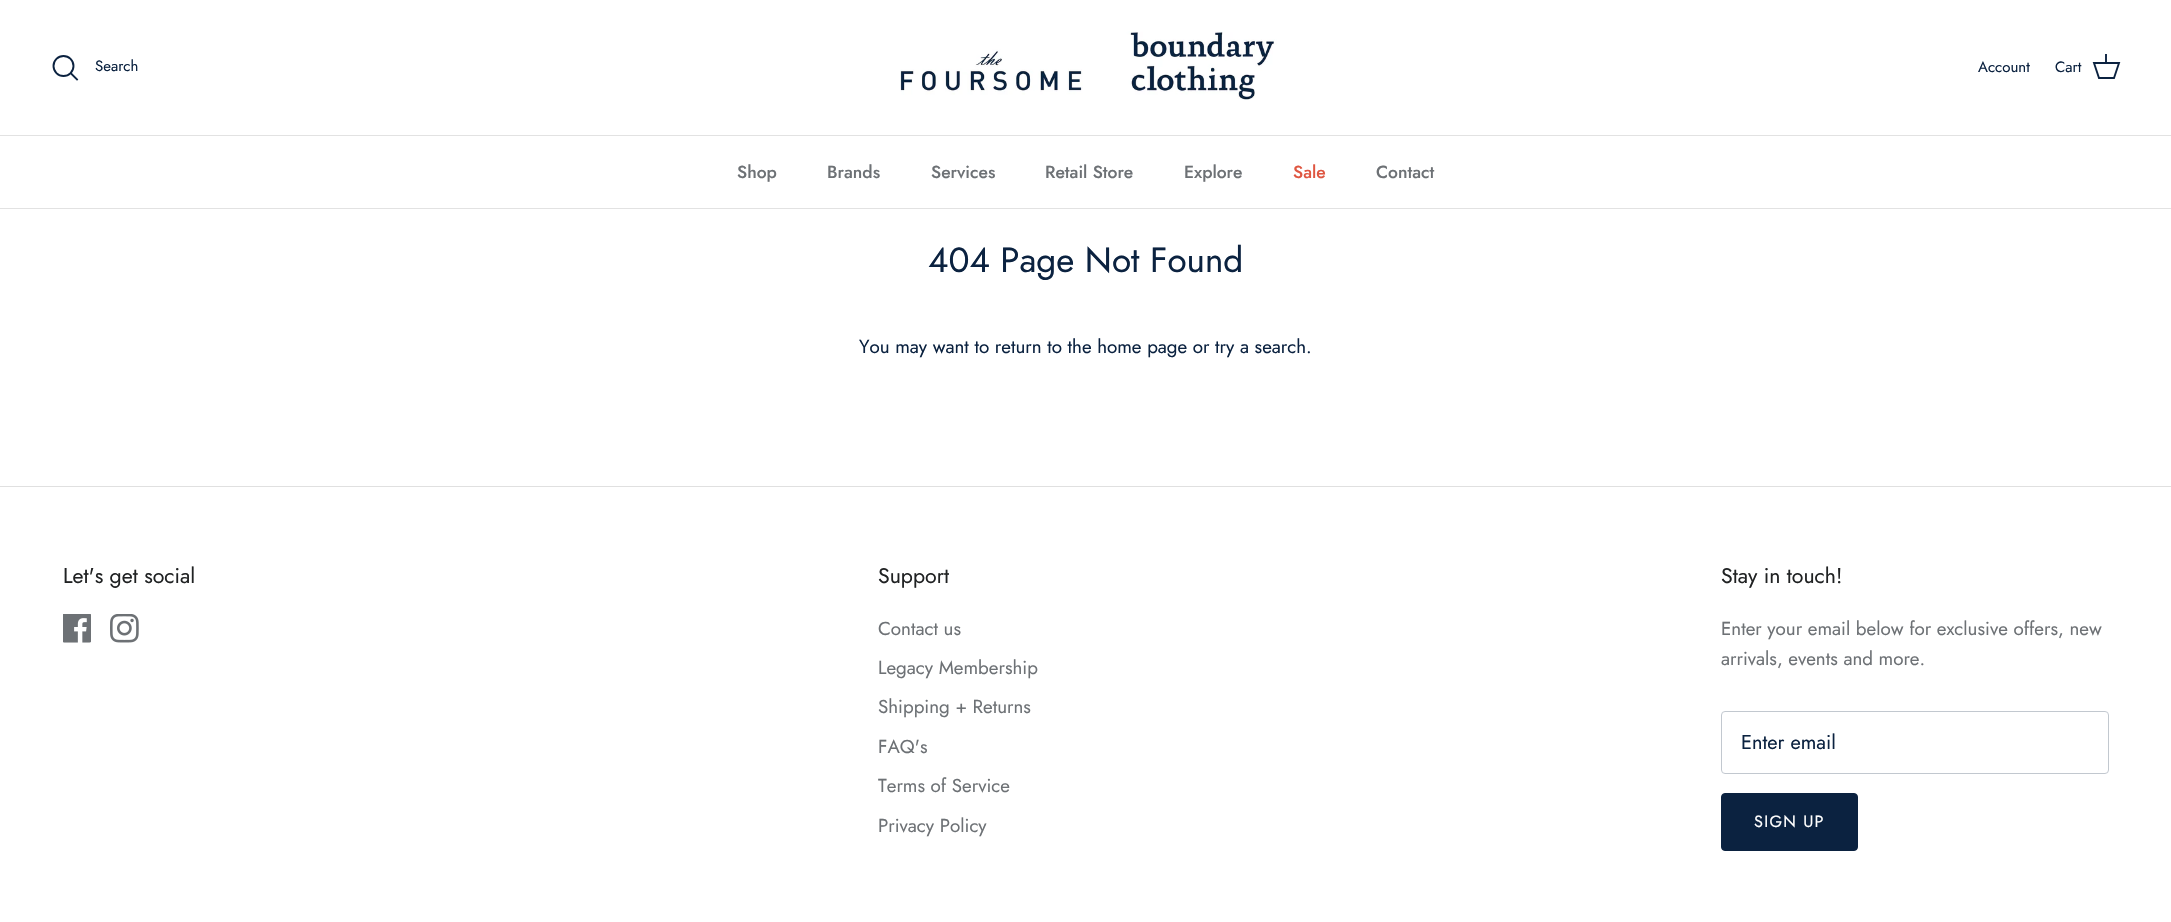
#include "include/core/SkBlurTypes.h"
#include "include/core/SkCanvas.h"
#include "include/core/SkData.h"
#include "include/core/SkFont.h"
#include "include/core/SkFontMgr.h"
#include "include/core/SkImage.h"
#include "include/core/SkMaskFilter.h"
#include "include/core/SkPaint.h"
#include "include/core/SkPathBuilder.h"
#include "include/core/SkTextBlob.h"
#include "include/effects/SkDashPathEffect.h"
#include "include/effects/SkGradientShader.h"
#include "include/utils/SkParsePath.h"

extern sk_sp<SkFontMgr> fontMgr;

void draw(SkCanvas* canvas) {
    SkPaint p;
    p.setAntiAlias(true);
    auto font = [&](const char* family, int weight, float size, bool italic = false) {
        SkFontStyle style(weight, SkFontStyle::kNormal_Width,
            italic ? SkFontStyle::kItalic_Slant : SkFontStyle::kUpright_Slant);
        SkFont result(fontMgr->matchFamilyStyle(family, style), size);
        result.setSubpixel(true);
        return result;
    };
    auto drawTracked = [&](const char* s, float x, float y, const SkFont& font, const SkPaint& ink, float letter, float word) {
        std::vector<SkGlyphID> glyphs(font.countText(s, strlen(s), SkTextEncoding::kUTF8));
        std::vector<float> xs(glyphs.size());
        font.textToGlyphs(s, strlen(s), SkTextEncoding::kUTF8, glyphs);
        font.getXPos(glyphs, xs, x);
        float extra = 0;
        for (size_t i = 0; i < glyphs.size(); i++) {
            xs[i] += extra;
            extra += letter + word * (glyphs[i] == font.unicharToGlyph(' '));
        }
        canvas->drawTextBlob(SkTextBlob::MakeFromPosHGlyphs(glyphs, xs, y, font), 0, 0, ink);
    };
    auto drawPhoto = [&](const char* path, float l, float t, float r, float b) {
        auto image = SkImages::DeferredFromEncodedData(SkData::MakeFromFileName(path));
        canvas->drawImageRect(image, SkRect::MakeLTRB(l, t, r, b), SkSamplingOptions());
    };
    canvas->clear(0xFFFFFFFF);
    p.setColor(0xFFE2E2E2);
    canvas->drawRect(SkRect::MakeLTRB(0, 135, 2171, 136), p);
    p.setStyle(SkPaint::kStroke_Style);
    p.setStrokeWidth(1.9f);
    p.setColor(0xFF0B2240);
    canvas->drawCircle(63.5f, 66, 10, p);
    auto font1 = font("Jost", 400, 15);
    p.setStyle(SkPaint::kFill_Style);
    canvas->drawString("Search", 95, 71, font1, p);
    p.setStyle(SkPaint::kStroke_Style);
    p.setStrokeCap(SkPaint::kSquare_Cap);
    canvas->drawPath(SkPathBuilder().moveTo(71, 73.5f).lineTo(77, 79.5f).detach(), p);
    drawPhoto("media/1.png", 900, 31, 1277, 100);
    p.setStyle(SkPaint::kFill_Style);
    canvas->drawString("Account", 1978, 72, font1, p);
    canvas->drawString("Cart", 2055, 72, font1, p);
    p.setStyle(SkPaint::kStroke_Style);
    p.setStrokeCap(SkPaint::kButt_Cap);
    canvas->drawPath(SkPathBuilder().moveTo(2094, 63).lineTo(2119, 63).lineTo(2114, 78).lineTo(2099, 78).close().detach(), p);
    p.setStyle(SkPaint::kFill_Style);
    p.setColor(0xF20B2240);
    canvas->drawRect(SkRect::MakeLTRB(2105, 54, 2107, 63), p);
    p.setColor(0xFFE2E2E2);
    canvas->drawRect(SkRect::MakeLTRB(0, 208, 2171, 209), p);
    auto font2 = font("Jost", 500, 17.5f);
    p.setColor(0xFF6D7175);
    {
        const struct { const char* s; float x, y; } items[] = {
            {"Shop", 737, 178},
            {"Brands", 827, 178},
            {"Services", 931, 178},
            {"Retail Store", 1045, 178},
            {"Explore", 1184, 178},
        };
        for (auto [s, x, y] : items) {
            canvas->drawString(s, x, y, font2, p);
        }
    }
    p.setColor(0xFFDF5641);
    canvas->drawString("Sale", 1293, 178, font2, p);
    p.setColor(0xFF6D7175);
    canvas->drawString("Contact", 1376, 178, font2, p);
    auto font3 = font("Jost", 400, 35);
    p.setColor(0xFF0B2240);
    canvas->drawString("404 Page Not Found", 928, 272, font3, p);
    auto font4 = font("Jost", 400, 18.75f);
    canvas->drawString("You may want to return to the home page or try a search.", 859, 353, font4, p);
    p.setColor(0xFFE0E0E0);
    canvas->drawRect(SkRect::MakeLTRB(0, 486, 2171, 487), p);
    auto font5 = font("Jost", 400, 21.25f);
    p.setColor(0xFF202223);
    canvas->drawString("Let's get social", 63, 583, font5, p);
    drawPhoto("media/2.png", 63, 614, 91, 643);
    drawPhoto("media/3.png", 110, 614, 139, 643);
    canvas->drawString("Support", 878, 583, font5, p);
    p.setColor(0xFF6D7175);
    {
        const struct { const char* s; float x, y; } items[] = {
            {"Contact us", 878, 635},
            {"Legacy Membership", 878, 674},
            {"Shipping + Returns", 878, 713},
            {"FAQ's", 878, 753},
            {"Terms of Service", 878, 792},
            {"Privacy Policy", 878, 832},
        };
        for (auto [s, x, y] : items) {
            canvas->drawString(s, x, y, font4, p);
        }
    }
    p.setColor(0xFF202223);
    canvas->drawString("Stay in touch!", 1721, 583, font5, p);
    p.setColor(0xFF6D7175);
    canvas->drawString("Enter your email below for exclusive offers, new", 1721, 635, font4, p);
    canvas->drawString("arrivals, events and more.", 1721, 665, font4, p);
    p.setStyle(SkPaint::kStroke_Style);
    p.setStrokeWidth(1);
    p.setColor(0xFFC2C8CF);
    canvas->drawRoundRect(SkRect::MakeLTRB(1721.5f, 711.5f, 2108.5f, 773.5f), 3.5f, 3.5f, p);
    auto font6 = font("Jost", 400, 20);
    p.setStyle(SkPaint::kFill_Style);
    p.setColor(0xFF0B2240);
    canvas->drawString("Enter email", 1741, 749, font6, p);
    canvas->drawRoundRect(SkRect::MakeLTRB(1721.5f, 793.5f, 1857.5f, 850.5f), 3.5f, 3.5f, p);
    p.setStyle(SkPaint::kStroke_Style);
    canvas->drawRoundRect(SkRect::MakeLTRB(1721.5f, 793.5f, 1857.5f, 850.5f), 3.5f, 3.5f, p);
    auto font7 = font("Jost", 400, 16.25f);
    p.setStyle(SkPaint::kFill_Style);
    p.setColor(0xFFFFFFFF);
    drawTracked("SIGN UP", 1754, 827, font7, p, 1.25f, 0);
}
